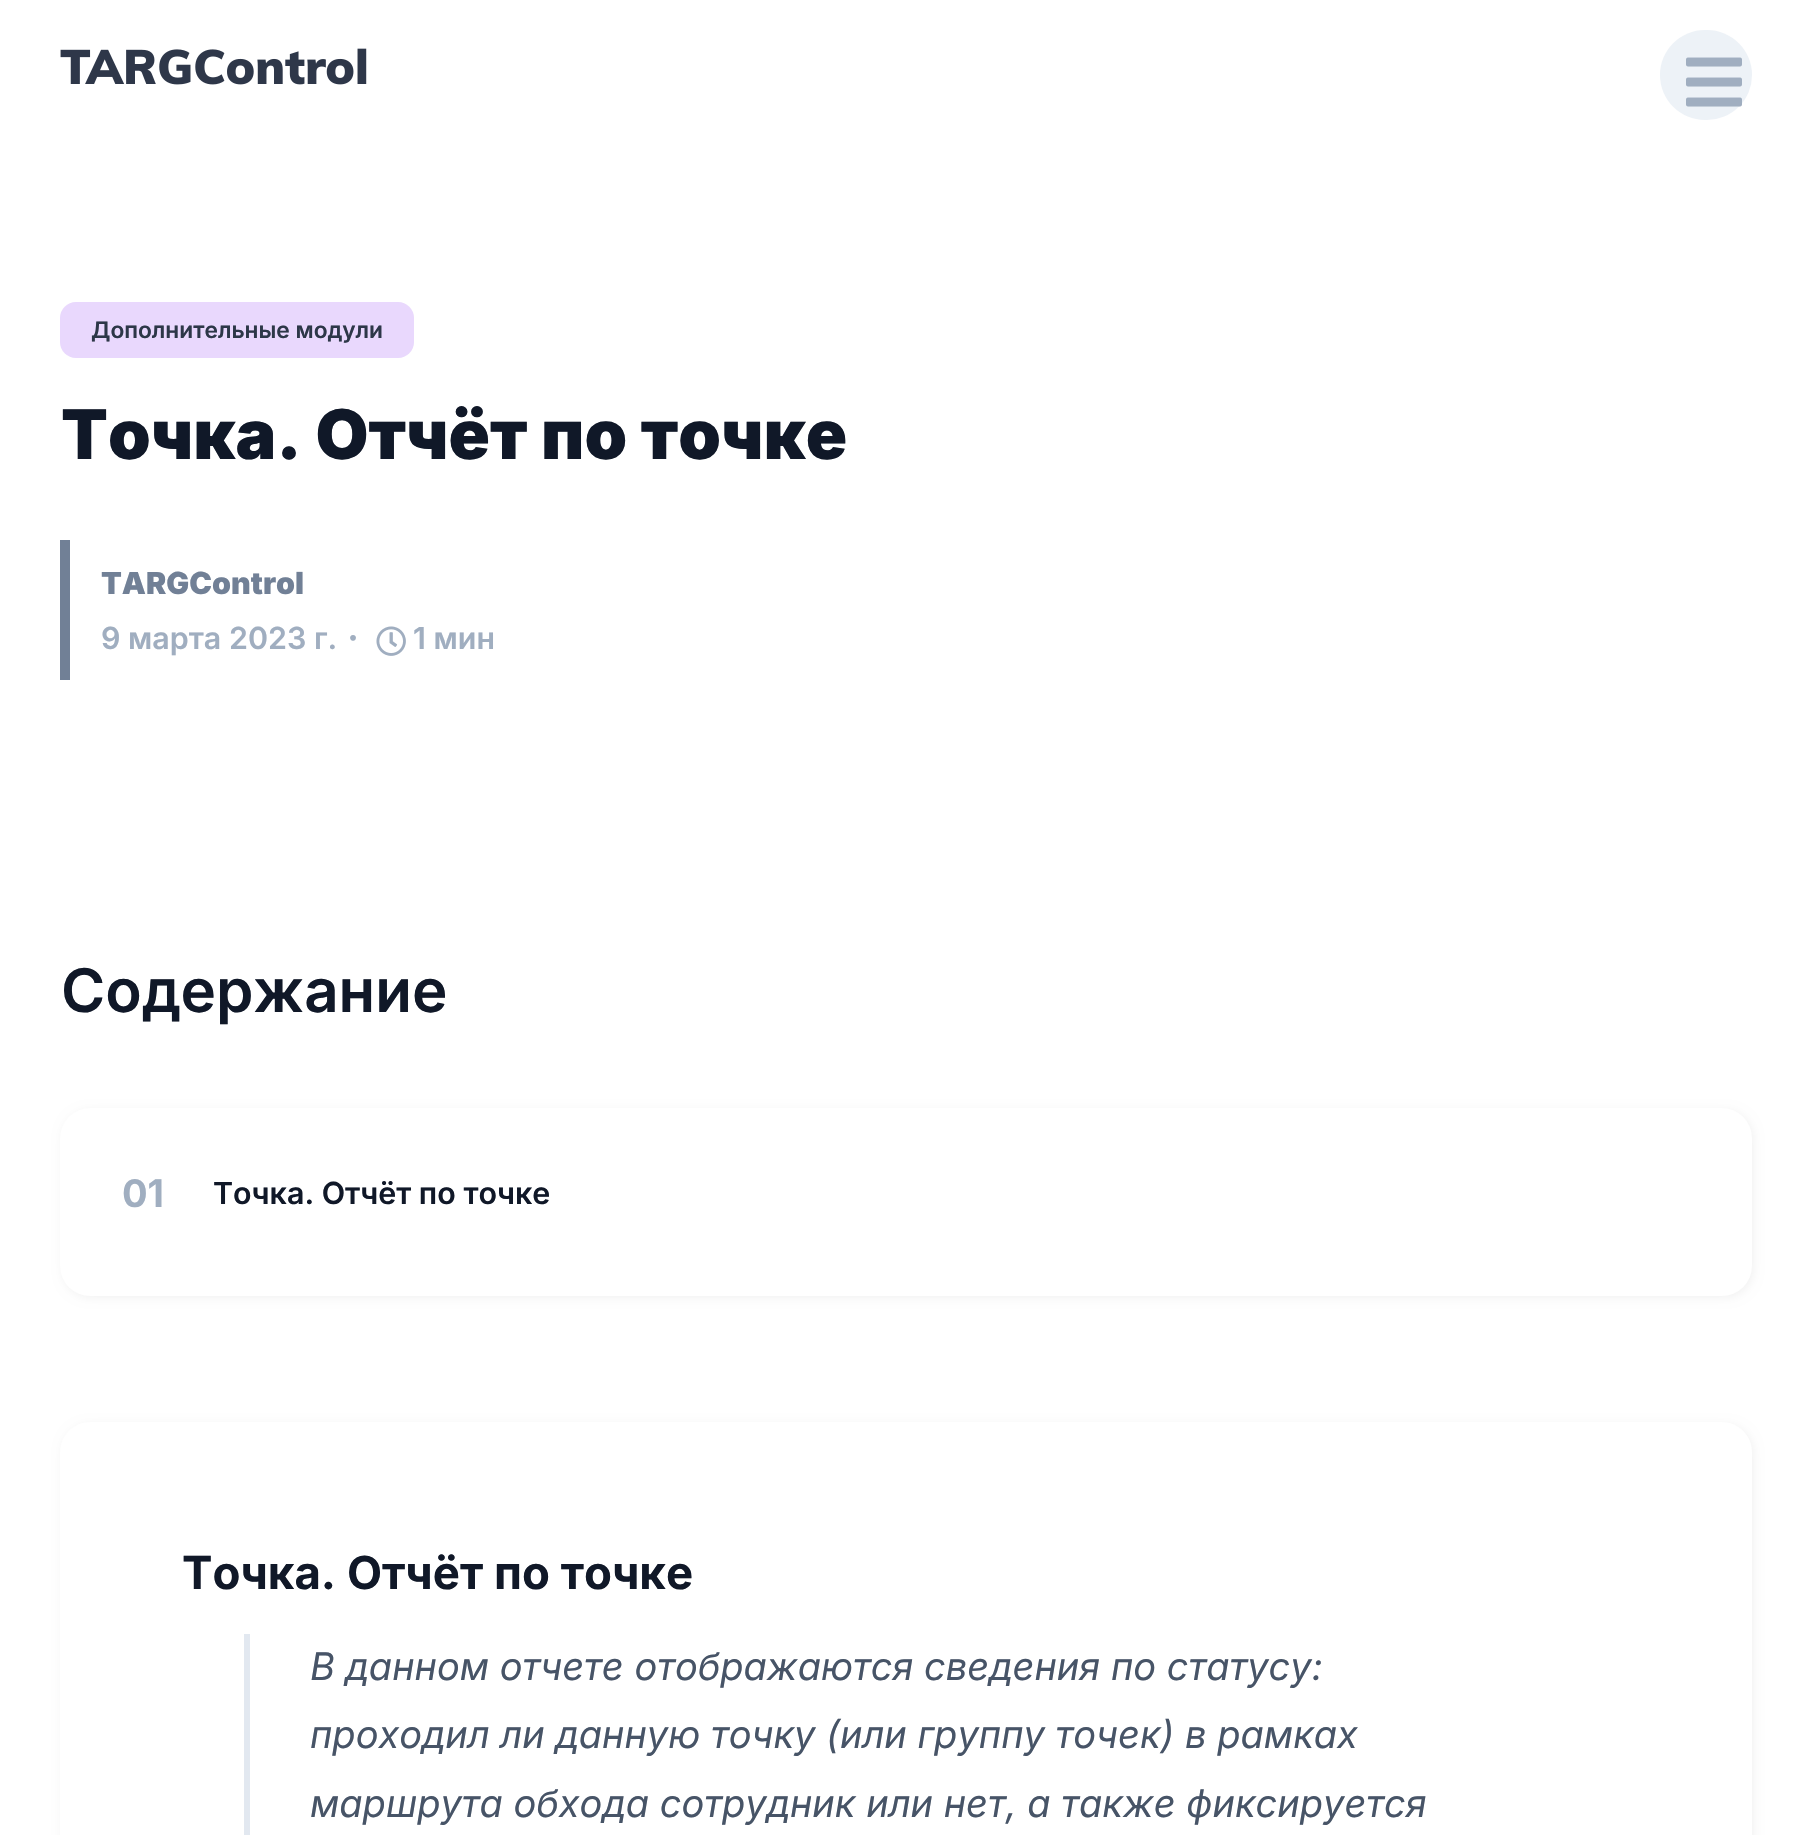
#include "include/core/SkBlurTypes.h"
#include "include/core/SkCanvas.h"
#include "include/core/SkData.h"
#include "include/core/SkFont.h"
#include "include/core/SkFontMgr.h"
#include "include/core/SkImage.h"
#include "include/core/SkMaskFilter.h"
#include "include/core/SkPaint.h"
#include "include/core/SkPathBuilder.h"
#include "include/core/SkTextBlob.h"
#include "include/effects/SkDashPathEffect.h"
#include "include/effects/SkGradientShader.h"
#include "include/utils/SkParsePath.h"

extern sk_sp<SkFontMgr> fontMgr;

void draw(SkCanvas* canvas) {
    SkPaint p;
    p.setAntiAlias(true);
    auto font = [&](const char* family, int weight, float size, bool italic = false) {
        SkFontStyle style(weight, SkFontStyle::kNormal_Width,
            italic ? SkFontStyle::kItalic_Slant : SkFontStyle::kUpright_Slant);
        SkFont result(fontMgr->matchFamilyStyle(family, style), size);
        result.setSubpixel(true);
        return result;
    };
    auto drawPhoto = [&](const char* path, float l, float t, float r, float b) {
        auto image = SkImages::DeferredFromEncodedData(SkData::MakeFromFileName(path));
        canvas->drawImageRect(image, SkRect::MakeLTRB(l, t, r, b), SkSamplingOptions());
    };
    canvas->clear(0xFFFFFFFF);
    drawPhoto("media/1.png", 60, 48, 367, 85);
    p.setColor(0xFFEDF2F7);
    canvas->drawRoundRect(SkRect::MakeLTRB(1660, 30, 1752, 120), 45, 45, p);
    drawPhoto("media/2.png", 1686, 57, 1742, 107);
    p.setColor(0xFFE9D8FD);
    canvas->drawRoundRect(SkRect::MakeLTRB(60, 302, 414, 358), 16, 16, p);
    auto font1 = font("Inter", 600, 22.75f);
    p.setColor(0xFF2D3748);
    canvas->drawString("Дополнительные модули", 91, 338, font1, p);
    auto font2 = font("Inter", 900, 68.4f);
    p.setColor(0xFF101828);
    canvas->drawString("Точка. Отчёт по точке", 61, 459, font2, p);
    p.setColor(0xFF718096);
    canvas->drawRect(SkRect::MakeLTRB(60, 540, 70, 680), p);
    auto font3 = font("Inter", 900, 30.4f);
    canvas->drawString("TARGControl", 101, 594, font3, p);
    auto font4 = font("Inter", 600, 30.4f);
    p.setColor(0xFFA0AEC0);
    canvas->drawString("9 марта 2023 г.", 101, 649, font4, p);
    auto font5 = font("WenQuanYi Zen Hei", 700, 30.4f);
    canvas->drawString("・", 337, 649, font5, p);
    drawPhoto("media/3.png", 376, 626, 406, 656);
    canvas->drawString("1 мин", 413, 649, font4, p);
    auto font6 = font("Inter", 600, 60);
    p.setColor(0xFF101828);
    canvas->drawString("Содержание", 61, 1012, font6, p);
    p.setColor(0x0D010101);
    p.setMaskFilter(SkMaskFilter::MakeBlur(kNormal_SkBlurStyle, 5));
    canvas->drawRoundRect(SkRect::MakeLTRB(62, 1110, 1754, 1298), 30, 30, p);
    p.setMaskFilter(nullptr);
    p.setColor(0xFFFFFFFF);
    canvas->drawRoundRect(SkRect::MakeLTRB(60, 1108, 1752, 1296), 30, 30, p);
    auto font7 = font("Inter", 700, 38);
    p.setColor(0xFFA0AEC0);
    canvas->drawString("01", 122, 1207, font7, p);
    p.setColor(0xFF101828);
    canvas->drawString("Точка. Отчёт по точке", 213, 1204, font4, p);
    p.setColor(0x0D010101);
    p.setMaskFilter(SkMaskFilter::MakeBlur(kNormal_SkBlurStyle, 5));
    canvas->drawRoundRect(SkRect::MakeLTRB(62, 1424, 1754, 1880), 30, 30, p);
    p.setMaskFilter(nullptr);
    p.setColor(0xFFFFFFFF);
    canvas->drawPath(SkPathBuilder().moveTo(90, 1422).lineTo(1722, 1422).cubicTo(1738.5f, 1422, 1752, 1435.5f, 1752, 1452).lineTo(1752, 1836).lineTo(60, 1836).lineTo(60, 1452).cubicTo(60, 1435.5f, 73.5f, 1422, 90, 1422).close().detach(), p);
    auto font8 = font("Inter", 700, 45.6f);
    p.setColor(0xFF101828);
    canvas->drawString("Точка. Отчёт по точке", 182, 1589, font8, p);
    p.setColor(0xFFE2E8F0);
    canvas->drawRect(SkRect::MakeLTRB(244, 1634, 250, 1835), p);
    auto font9 = font("Inter", 400, 38, true);
    p.setColor(0xFF475467);
    {
        const struct { const char* s; float x, y; } items[] = {
            {"В данном отчете отображаются сведения по статусу:", 310, 1680},
            {"проходил ли данную точку (или группу точек) в рамках", 310, 1748},
            {"маршрута обхода сотрудник или нет, а также фиксируется", 310, 1817},
        };
        for (auto [s, x, y] : items) {
            canvas->drawString(s, x, y, font9, p);
        }
    }
}
